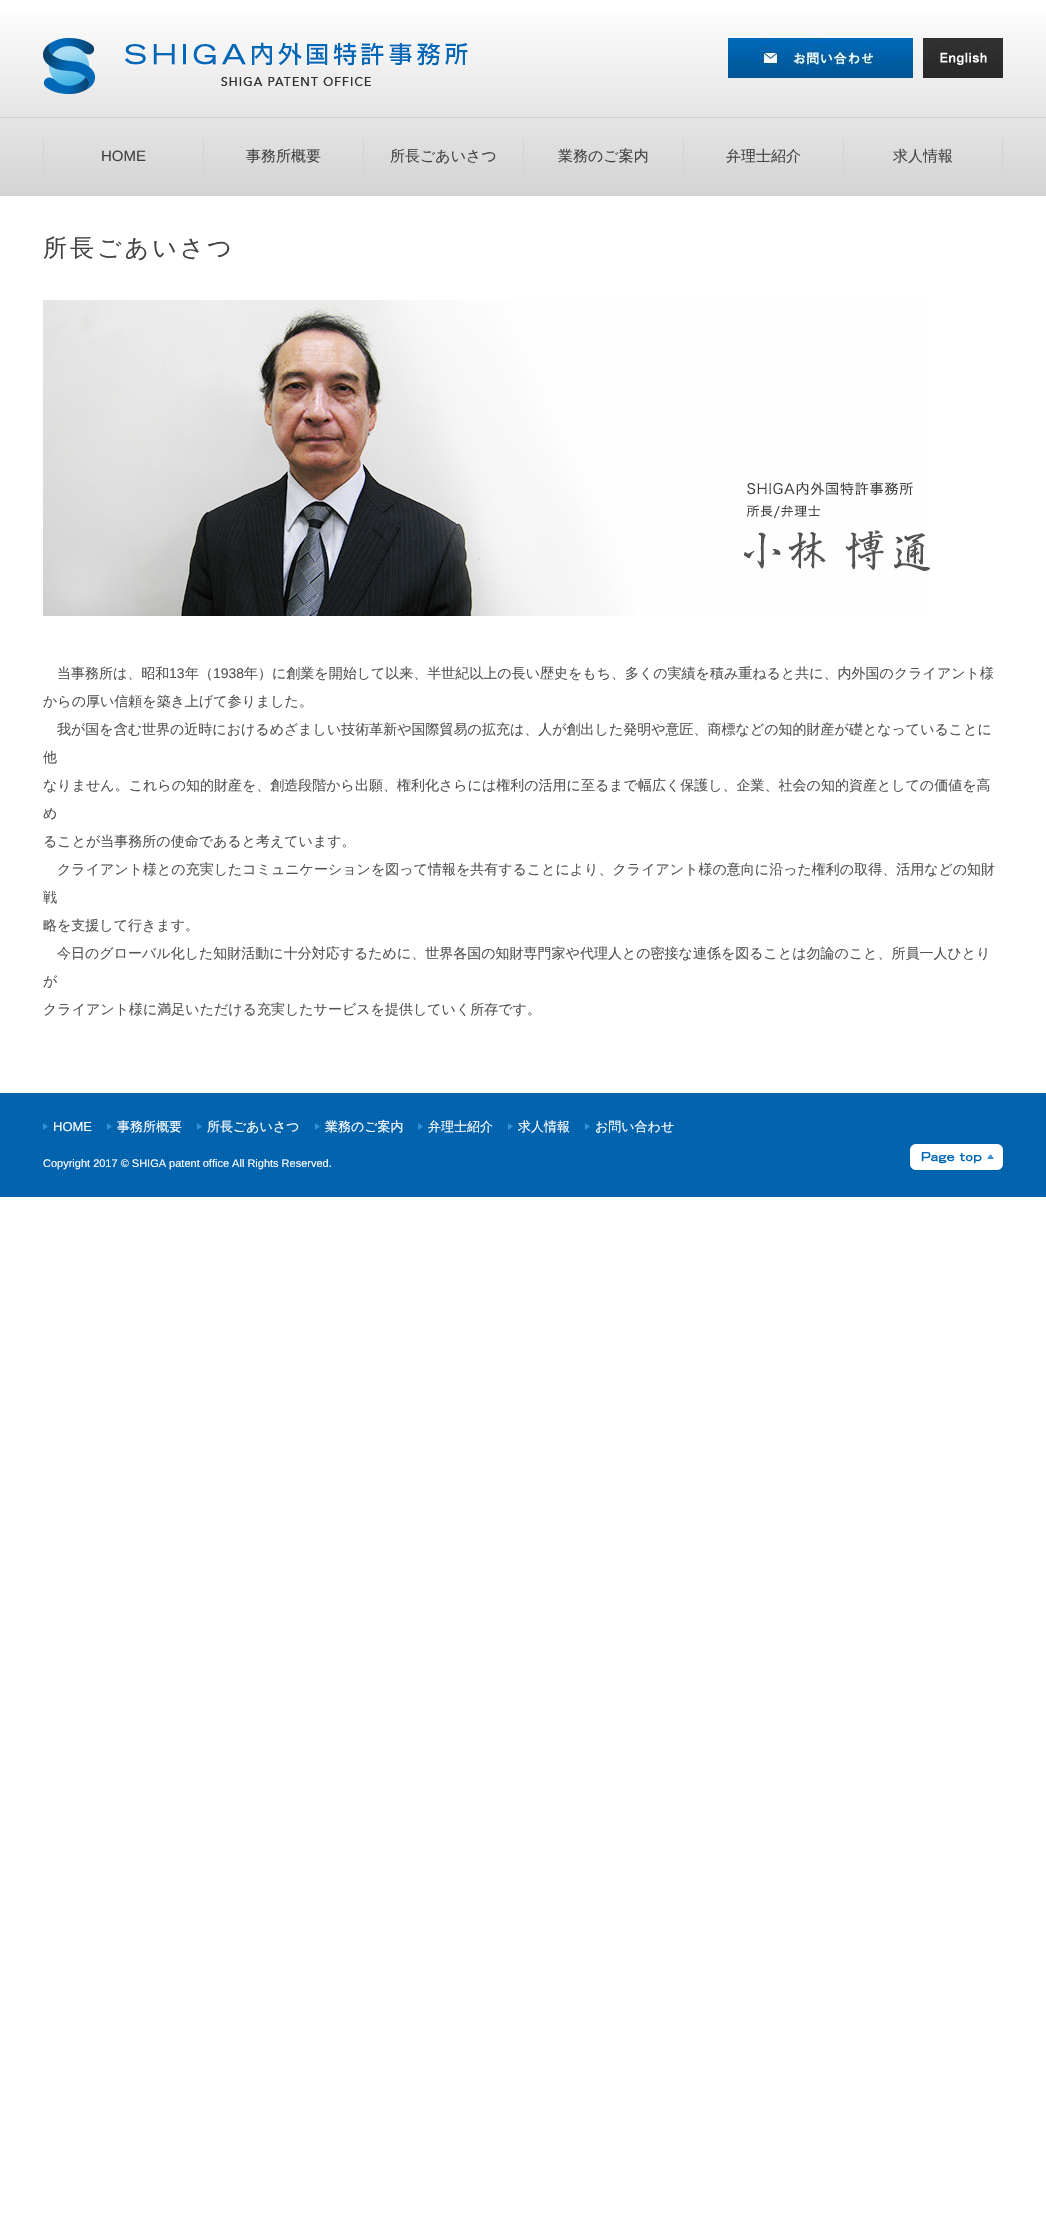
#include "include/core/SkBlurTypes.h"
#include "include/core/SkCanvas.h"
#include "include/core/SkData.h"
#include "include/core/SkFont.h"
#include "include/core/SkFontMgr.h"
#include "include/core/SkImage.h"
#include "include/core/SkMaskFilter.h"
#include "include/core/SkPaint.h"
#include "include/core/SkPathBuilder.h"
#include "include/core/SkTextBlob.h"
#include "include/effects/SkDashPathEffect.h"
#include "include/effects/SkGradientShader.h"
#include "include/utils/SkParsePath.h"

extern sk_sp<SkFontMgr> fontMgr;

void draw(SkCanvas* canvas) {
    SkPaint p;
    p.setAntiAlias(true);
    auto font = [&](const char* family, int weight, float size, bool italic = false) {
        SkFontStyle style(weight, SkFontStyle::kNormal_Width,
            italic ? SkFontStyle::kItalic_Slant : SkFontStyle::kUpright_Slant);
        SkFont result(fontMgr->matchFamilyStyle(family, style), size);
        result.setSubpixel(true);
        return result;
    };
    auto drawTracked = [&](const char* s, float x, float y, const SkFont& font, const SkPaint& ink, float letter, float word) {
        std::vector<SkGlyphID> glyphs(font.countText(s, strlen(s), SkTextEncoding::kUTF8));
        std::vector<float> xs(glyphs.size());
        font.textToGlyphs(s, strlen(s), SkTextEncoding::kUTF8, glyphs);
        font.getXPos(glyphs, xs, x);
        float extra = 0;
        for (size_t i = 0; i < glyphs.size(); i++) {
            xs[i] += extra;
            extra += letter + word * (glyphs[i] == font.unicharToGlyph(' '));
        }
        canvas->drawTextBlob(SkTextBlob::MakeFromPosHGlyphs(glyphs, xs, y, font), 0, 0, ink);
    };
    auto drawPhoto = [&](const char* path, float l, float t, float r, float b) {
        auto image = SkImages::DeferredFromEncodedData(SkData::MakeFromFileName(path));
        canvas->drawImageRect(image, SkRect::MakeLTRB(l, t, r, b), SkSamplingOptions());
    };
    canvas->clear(0xFFFFFFFF);
    {
        const SkColor colors[] = {0xFFFFFFFF, 0xFFD3D3D3};
        const float stops[] = {0, 1};
        const SkPoint ends[] = {{523, 0}, {523, 196}};
        p.setShader(SkGradientShader::MakeLinear(ends, colors, stops, 2, SkTileMode::kClamp));
        p.setAlpha(255);
    }
    canvas->drawRect(SkRect::MakeLTRB(0, 11, 1046, 196), p);
    drawPhoto("media/1.png", 43, 38, 468, 94);
    drawPhoto("media/2.png", 728, 38, 913, 78);
    drawPhoto("media/3.png", 923, 38, 1003, 78);
    p.setShader(nullptr);
    p.setColor(0xFFD2D2D2);
    canvas->drawRect(SkRect::MakeLTRB(0, 117, 1046, 118), p);
    canvas->drawRect(SkRect::MakeLTRB(43, 138, 44, 173), p);
    auto font1 = font("Liberation Sans", 400, 15);
    p.setColor(0xFF434343);
    canvas->drawString("HOME", 101, 161, font1, p);
    p.setColor(0xFFD2D2D2);
    canvas->drawRect(SkRect::MakeLTRB(203, 138, 204, 173), p);
    auto font2 = font("WenQuanYi Zen Hei", 500, 15);
    p.setColor(0xFF434343);
    canvas->drawString("事務所概要", 246, 161, font2, p);
    p.setColor(0xFFD2D2D2);
    canvas->drawRect(SkRect::MakeLTRB(363, 138, 364, 173), p);
    p.setColor(0xFF434343);
    canvas->drawString("所長ごあいさつ", 390, 161, font2, p);
    p.setColor(0xFFD2D2D2);
    canvas->drawRect(SkRect::MakeLTRB(523, 138, 524, 173), p);
    p.setColor(0xFF434343);
    canvas->drawString("業務のご案内", 558, 161, font2, p);
    p.setColor(0xFFD2D2D2);
    canvas->drawRect(SkRect::MakeLTRB(683, 138, 684, 173), p);
    p.setColor(0xFF434343);
    canvas->drawString("弁理士紹介", 726, 161, font2, p);
    p.setColor(0xFFD2D2D2);
    canvas->drawRect(SkRect::MakeLTRB(1002, 138, 1003, 173), p);
    canvas->drawRect(SkRect::MakeLTRB(843, 138, 844, 173), p);
    p.setColor(0xFF434343);
    canvas->drawString("求人情報", 893, 161, font2, p);
    auto font3 = font("WenQuanYi Zen Hei", 500, 24);
    drawTracked("所長ごあいさつ", 43, 256, font3, p, 3, 0);
    drawPhoto("media/4.png", 43, 300, 930, 616);
    auto font4 = font("WenQuanYi Zen Hei", 500, 14);
    p.setColor(0xFF535353);
    canvas->drawString("当事務所は、昭和", 57, 678, font4, p);
    auto font5 = font("Liberation Sans", 400, 14);
    canvas->drawString("13", 169, 678, font5, p);
    canvas->drawString("年（", 185, 678, font4, p);
    canvas->drawString("1938", 213, 678, font5, p);
    {
        const struct { const char* s; float x, y; } items[] = {
            {"年）に創業を開始して以来、半世紀以上の長い歴史をもち、多くの実績を積み重ねると共に、内外国のクライアント様", 244, 678},
            {"からの厚い信頼を築き上げて参りました。", 43, 706},
            {"我が国を含む世界の近時におけるめざましい技術革新や国際貿易の拡充は、人が創出した発明や意匠、商標などの知的財産が礎となっていることに", 57, 734},
            {"他", 43, 762},
            {"なりません。これらの知的財産を、創造段階から出願、権利化さらには権利の活用に至るまで幅広く保護し、企業、社会の知的資産としての価値を高", 43, 790},
            {"め", 43, 818},
            {"ることが当事務所の使命であると考えています。", 43, 846},
            {"クライアント様との充実したコミュニケーションを図って情報を共有することにより、クライアント様の意向に沿った権利の取得、活用などの知財", 57, 874},
            {"戦", 43, 902},
            {"略を支援して行きます。", 43, 930},
            {"今日のグローバル化した知財活動に十分対応するために、世界各国の知財専門家や代理人との密接な連係を図ることは勿論のこと、所員一人ひとり", 57, 958},
            {"が", 43, 986},
            {"クライアント様に満足いただける充実したサービスを提供していく所存です。", 43, 1014},
        };
        for (auto [s, x, y] : items) {
            canvas->drawString(s, x, y, font4, p);
        }
    }
    drawPhoto("media/5.png", 0, 1093, 1046, 1197);
    drawPhoto("media/6.png", 43, 1123, 48, 1130);
    auto font6 = font("Liberation Sans", 400, 13);
    p.setColor(0xFFFFFFFF);
    canvas->drawString("HOME", 53, 1131, font6, p);
    drawPhoto("media/6.png", 107, 1123, 112, 1130);
    auto font7 = font("WenQuanYi Zen Hei", 500, 13);
    canvas->drawString("事務所概要", 117, 1131, font7, p);
    drawPhoto("media/6.png", 197, 1123, 202, 1130);
    canvas->drawString("所長ごあいさつ", 207, 1131, font7, p);
    drawPhoto("media/6.png", 315, 1123, 320, 1130);
    canvas->drawString("業務のご案内", 325, 1131, font7, p);
    drawPhoto("media/7.png", 418, 1123, 423, 1130);
    canvas->drawString("弁理士紹介", 428, 1131, font7, p);
    drawPhoto("media/7.png", 508, 1123, 513, 1130);
    canvas->drawString("求人情報", 518, 1131, font7, p);
    drawPhoto("media/6.png", 585, 1123, 590, 1130);
    canvas->drawString("お問い合わせ", 595, 1131, font7, p);
    auto font8 = font("Liberation Sans", 400, 11);
    canvas->drawString("Copyright 2017 © SHIGA patent office All Rights Reserved.", 43, 1167, font8, p);
    drawPhoto("media/8.png", 910, 1144, 1003, 1170);
}
